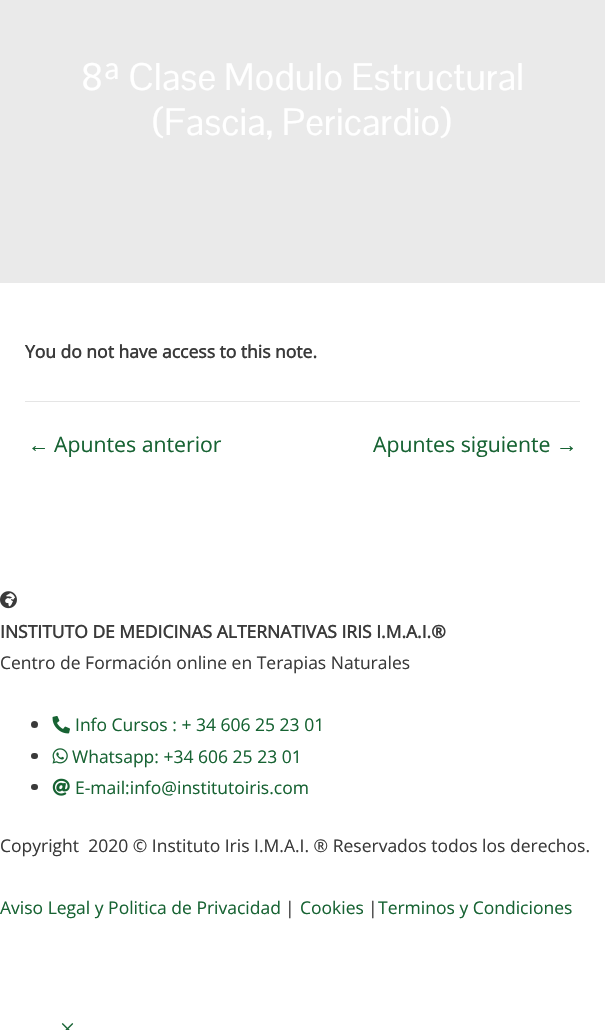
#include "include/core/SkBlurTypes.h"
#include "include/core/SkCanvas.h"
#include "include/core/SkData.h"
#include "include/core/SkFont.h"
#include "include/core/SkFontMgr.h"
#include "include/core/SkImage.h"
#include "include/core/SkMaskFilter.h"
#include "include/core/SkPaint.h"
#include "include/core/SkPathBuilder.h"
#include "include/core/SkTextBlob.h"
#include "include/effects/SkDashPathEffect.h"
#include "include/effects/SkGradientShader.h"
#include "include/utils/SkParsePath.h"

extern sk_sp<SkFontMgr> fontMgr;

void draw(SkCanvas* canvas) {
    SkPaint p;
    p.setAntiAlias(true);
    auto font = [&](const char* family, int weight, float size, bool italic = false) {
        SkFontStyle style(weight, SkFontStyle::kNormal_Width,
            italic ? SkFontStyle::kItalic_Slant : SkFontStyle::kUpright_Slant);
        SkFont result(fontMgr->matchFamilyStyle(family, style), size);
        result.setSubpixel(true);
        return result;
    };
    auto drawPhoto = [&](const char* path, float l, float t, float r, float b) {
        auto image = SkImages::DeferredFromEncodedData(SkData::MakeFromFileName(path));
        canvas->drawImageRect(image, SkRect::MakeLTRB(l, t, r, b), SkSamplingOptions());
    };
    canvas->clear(0xFFFFFFFF);
    p.setColor(0xFFEAEAEA);
    canvas->drawRect(SkRect::MakeLTRB(0, 0, 605, 283), p);
    auto font1 = font("Pontano Sans", 400, 37.5f);
    p.setColor(0xFFFFFFFF);
    canvas->drawString("8ª Clase Modulo Estructural", 81, 90, font1, p);
    canvas->drawString("(Fascia, Pericardio)", 153, 135, font1, p);
    auto font2 = font("Open Sans", 700, 17.5f);
    p.setColor(0xFF3A3A3A);
    canvas->drawString("You do not have access to this note.", 25, 358, font2, p);
    p.setColor(0xFFE5E5E5);
    canvas->drawRect(SkRect::MakeLTRB(25, 401, 580, 402), p);
    auto font3 = font("Liberation Sans", 400, 21.25f);
    p.setColor(0xFF176333);
    canvas->drawString("←", 28, 452, font3, p);
    auto font4 = font("Open Sans", 400, 21.25f);
    canvas->drawString("Apuntes anterior", 54, 452, font4, p);
    canvas->drawString("Apuntes siguiente", 373, 452, font4, p);
    canvas->drawString("→", 556, 452, font3, p);
    drawPhoto("media/1.png", 0, 591, 17, 609);
    p.setColor(0xFF3A3A3A);
    canvas->drawString("INSTITUTO DE MEDICINAS ALTERNATIVAS IRIS I.M.A.I.®", 0, 638, font2, p);
    auto font5 = font("Open Sans", 400, 17.5f);
    canvas->drawString("Centro de Formación online en Terapias Naturales", 0, 669, font5, p);
    canvas->drawCircle(34.5f, 724.5f, 3.5f, p);
    drawPhoto("media/2.png", 52, 716, 70, 734);
    p.setColor(0xFF176333);
    canvas->drawString("Info Cursos : + 34 606 25 23 01", 75, 731, font5, p);
    p.setColor(0xFF3A3A3A);
    canvas->drawRoundRect(SkRect::MakeLTRB(31, 753, 38, 759), 3, 3, p);
    drawPhoto("media/3.png", 52, 748, 68, 764);
    p.setColor(0xFF176333);
    canvas->drawString("Whatsapp: +34 606 25 23 01", 72, 763, font5, p);
    p.setColor(0xFF3A3A3A);
    canvas->drawRoundRect(SkRect::MakeLTRB(31, 784, 38, 790), 3, 3, p);
    drawPhoto("media/4.png", 52, 778, 70, 796);
    p.setColor(0xFF176333);
    canvas->drawString("E-mail:info@institutoiris.com", 75, 794, font5, p);
    p.setColor(0xFF3A3A3A);
    canvas->drawString("Copyright  2020 © Instituto Iris I.M.A.I. ® Reservados todos los derechos.", 0, 852, font5, p);
    p.setColor(0xFF176333);
    canvas->drawString("Aviso Legal y Politica de Privacidad", 0, 914, font5, p);
    p.setColor(0xFF3A3A3A);
    canvas->drawString("|", 285, 914, font5, p);
    p.setColor(0xFF176333);
    canvas->drawString("Cookies", 300, 914, font5, p);
    p.setColor(0xFF3A3A3A);
    canvas->drawString("|", 368, 914, font5, p);
    p.setColor(0xFF176333);
    canvas->drawString("Terminos y Condiciones", 378, 914, font5, p);
    drawPhoto("media/5.png", 61, 1023, 74, 1030);
}
